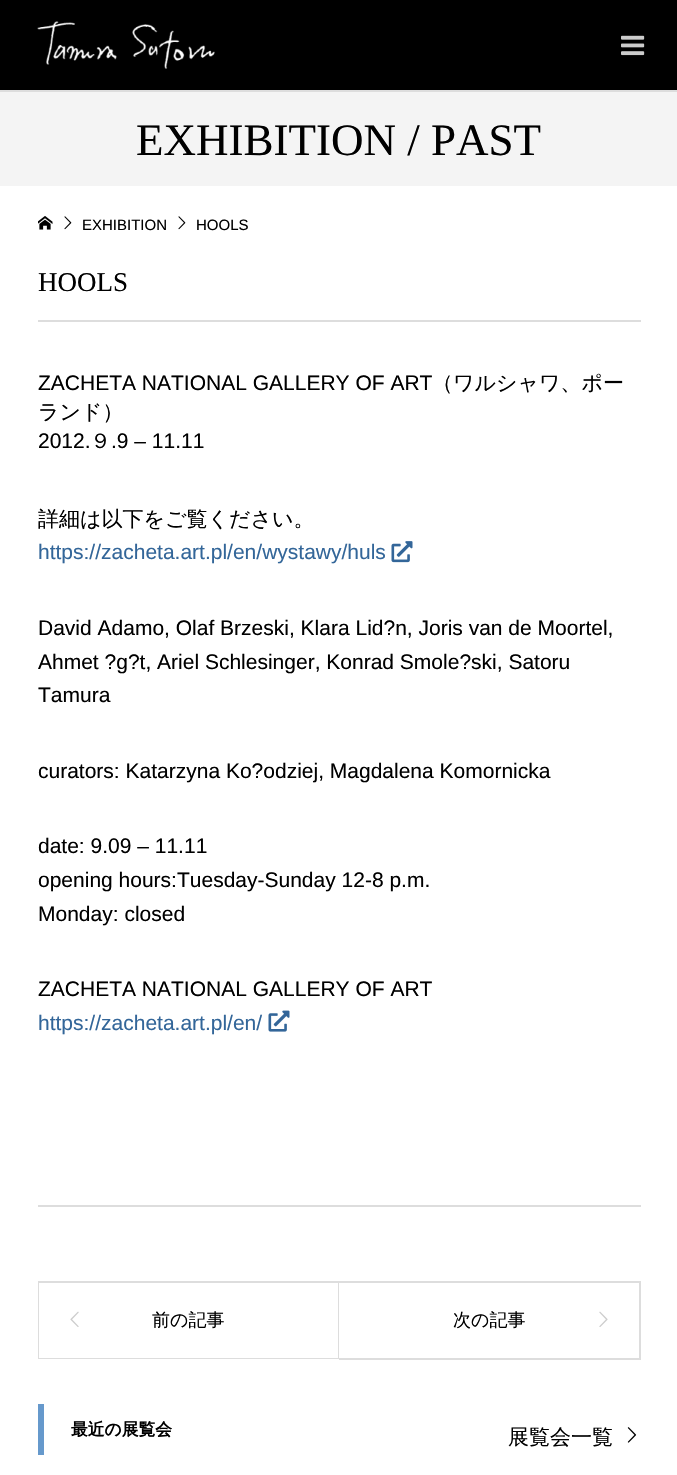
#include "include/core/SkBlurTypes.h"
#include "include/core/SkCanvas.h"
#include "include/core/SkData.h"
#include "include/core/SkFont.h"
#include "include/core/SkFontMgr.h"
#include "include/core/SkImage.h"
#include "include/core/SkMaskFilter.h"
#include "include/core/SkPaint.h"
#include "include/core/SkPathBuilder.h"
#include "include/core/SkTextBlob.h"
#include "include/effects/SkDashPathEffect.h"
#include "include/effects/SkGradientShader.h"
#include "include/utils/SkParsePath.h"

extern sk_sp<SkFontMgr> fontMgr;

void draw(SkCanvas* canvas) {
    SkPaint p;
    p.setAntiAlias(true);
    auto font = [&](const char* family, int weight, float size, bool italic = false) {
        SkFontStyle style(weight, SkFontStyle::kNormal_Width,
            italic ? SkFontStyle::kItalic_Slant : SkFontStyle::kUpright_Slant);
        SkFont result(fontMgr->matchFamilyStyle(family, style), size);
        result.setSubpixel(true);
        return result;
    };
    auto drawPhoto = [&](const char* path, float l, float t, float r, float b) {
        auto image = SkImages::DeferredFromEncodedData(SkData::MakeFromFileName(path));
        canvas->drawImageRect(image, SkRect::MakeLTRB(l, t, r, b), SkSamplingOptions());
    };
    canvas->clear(0xFFFFFFFF);
    p.setColor(0xFF000000);
    canvas->drawRect(SkRect::MakeLTRB(0, 0, 677, 90), p);
    drawPhoto("media/1.png", 37, 21, 215, 69);
    drawPhoto("media/2.png", 621, 35, 645, 56);
    p.setColor(0xFFF4F4F4);
    canvas->drawRect(SkRect::MakeLTRB(0, 92, 677, 186), p);
    p.setColor(0xFFDDDDDD);
    canvas->drawRect(SkRect::MakeLTRB(0, 90, 677, 92), p);
    auto font1 = font("Liberation Serif", 400, 45);
    p.setColor(0xFF000000);
    canvas->drawString("EXHIBITION / PAST", 136, 155, font1, p);
    drawPhoto("media/3.png", 38, 216, 53, 230);
    drawPhoto("media/4.png", 64, 216, 72, 230);
    auto font2 = font("Liberation Sans", 400, 15);
    canvas->drawString("EXHIBITION", 82, 230, font2, p);
    drawPhoto("media/4.png", 178, 216, 186, 230);
    canvas->drawString("HOOLS", 196, 230, font2, p);
    auto font3 = font("Liberation Serif", 400, 27);
    canvas->drawString("HOOLS", 38, 291, font3, p);
    p.setColor(0xFFDDDDDD);
    canvas->drawRect(SkRect::MakeLTRB(38, 320, 641, 322), p);
    canvas->drawRect(SkRect::MakeLTRB(38, 1205, 641, 1207), p);
    auto font4 = font("Liberation Sans", 400, 21);
    p.setColor(0xFF000000);
    canvas->drawString("ZACHETA NATIONAL GALLERY OF ART", 38, 390, font4, p);
    auto font5 = font("WenQuanYi Zen Hei", 500, 21);
    canvas->drawString("（ワルシャワ、ポー", 432, 390, font5, p);
    canvas->drawString("ランド）", 38, 419, font5, p);
    canvas->drawString("2012.", 38, 448, font4, p);
    canvas->drawString("９", 90, 448, font5, p);
    canvas->drawString(".9 – 11.11", 111, 448, font4, p);
    canvas->drawString("詳細は以下をご覧ください。", 38, 526, font5, p);
    p.setColor(0xFF336699);
    canvas->drawString("https://zacheta.art.pl/en/wystawy/huls", 38, 559, font4, p);
    drawPhoto("media/5.png", 391, 541, 413, 563);
    p.setColor(0xFF000000);
    {
        const struct { const char* s; float x, y; } items[] = {
            {"David Adamo, Olaf Brzeski, Klara Lid?n, Joris van de Moortel,", 38, 635},
            {"Ahmet ?g?t, Ariel Schlesinger, Konrad Smole?ski, Satoru", 38, 669},
            {"Tamura", 38, 702},
            {"curators: Katarzyna Ko?odziej, Magdalena Komornicka", 38, 778},
            {"date: 9.09 – 11.11", 38, 853},
            {"opening hours:Tuesday-Sunday 12-8 p.m.", 38, 887},
            {"Monday: closed", 38, 921},
            {"ZACHETA NATIONAL GALLERY OF ART", 38, 996},
        };
        for (auto [s, x, y] : items) {
            canvas->drawString(s, x, y, font4, p);
        }
    }
    p.setColor(0xFF336699);
    canvas->drawString("https://zacheta.art.pl/en/", 38, 1030, font4, p);
    drawPhoto("media/6.png", 268, 1010, 290, 1032);
    p.setStyle(SkPaint::kStroke_Style);
    p.setStrokeWidth(2);
    p.setColor(0xFFDDDDDD);
    canvas->drawRect(SkRect::MakeLTRB(39, 1282, 338, 1358), p);
    p.setStyle(SkPaint::kFill_Style);
    p.setColor(0xFFFFFFFF);
    canvas->drawRect(SkRect::MakeLTRB(39, 1283, 338, 1358), p);
    drawPhoto("media/7.png", 70, 1311, 79, 1327);
    auto font6 = font("WenQuanYi Zen Hei", 500, 18);
    p.setColor(0xFF000000);
    canvas->drawString("前の記事", 152, 1326, font6, p);
    {
        const struct { float l, t, r, b; SkColor color; } items[] = {
            {339, 1281, 641, 1283, 0xFFDDDDDD},
            {639, 1281, 641, 1359, 0xFFDDDDDD},
            {339, 1358, 641, 1360, 0xFFDDDDDD},
        };
        for (auto [l, t, r, b, color] : items) {
            p.setColor(color);
            canvas->drawRect(SkRect::MakeLTRB(l, t, r, b), p);
        }
    }
    p.setColor(0xFF000000);
    canvas->drawString("次の記事", 453, 1326, font6, p);
    drawPhoto("media/8.png", 599, 1311, 608, 1327);
    p.setColor(0xFF6699CC);
    canvas->drawRect(SkRect::MakeLTRB(38, 1404, 44, 1455), p);
    auto font7 = font("WenQuanYi Zen Hei", 700, 16.75f);
    p.setColor(0xFF000000);
    canvas->drawString("最近の展覧会", 71, 1435, font7, p);
    canvas->drawString("展覧会一覧", 508, 1444, font5, p);
    drawPhoto("media/9.png", 627, 1427, 637, 1443);
}
